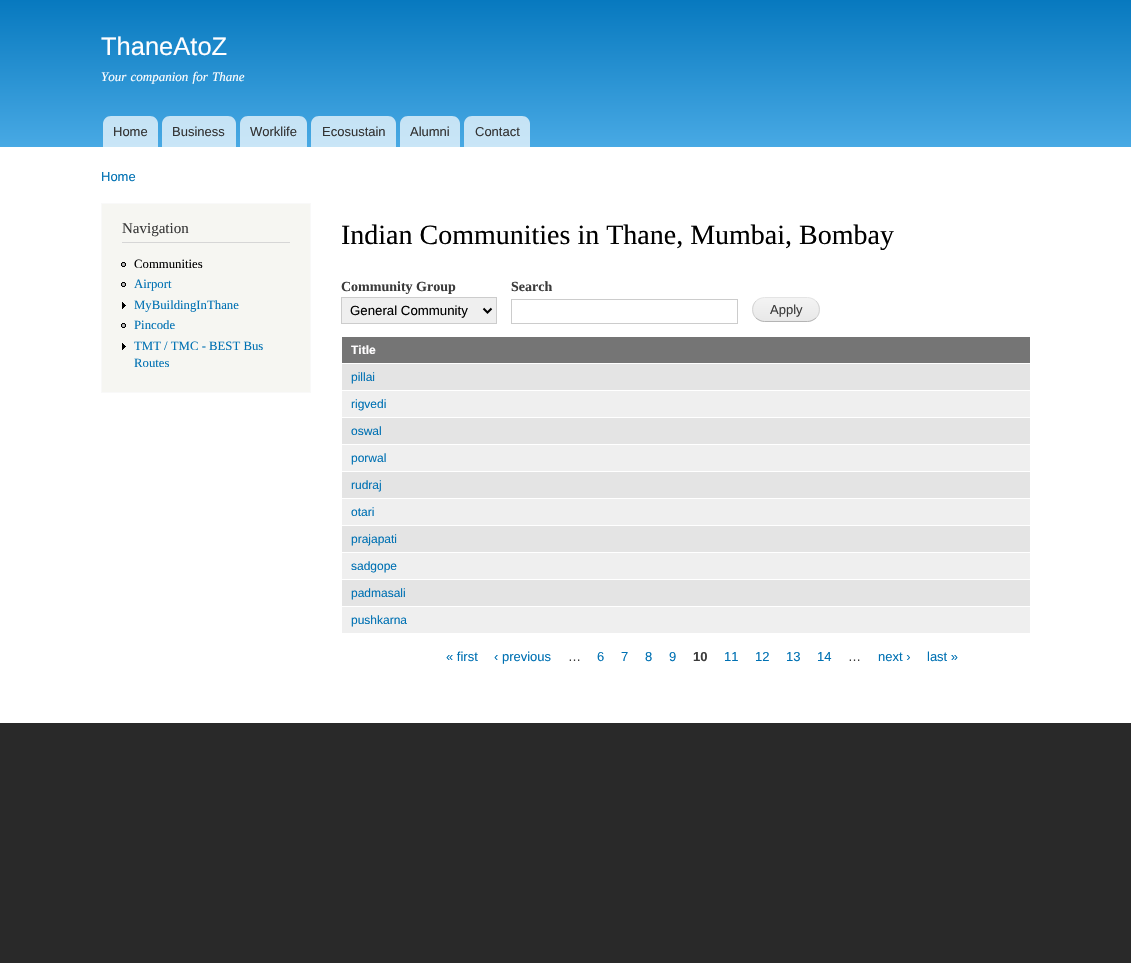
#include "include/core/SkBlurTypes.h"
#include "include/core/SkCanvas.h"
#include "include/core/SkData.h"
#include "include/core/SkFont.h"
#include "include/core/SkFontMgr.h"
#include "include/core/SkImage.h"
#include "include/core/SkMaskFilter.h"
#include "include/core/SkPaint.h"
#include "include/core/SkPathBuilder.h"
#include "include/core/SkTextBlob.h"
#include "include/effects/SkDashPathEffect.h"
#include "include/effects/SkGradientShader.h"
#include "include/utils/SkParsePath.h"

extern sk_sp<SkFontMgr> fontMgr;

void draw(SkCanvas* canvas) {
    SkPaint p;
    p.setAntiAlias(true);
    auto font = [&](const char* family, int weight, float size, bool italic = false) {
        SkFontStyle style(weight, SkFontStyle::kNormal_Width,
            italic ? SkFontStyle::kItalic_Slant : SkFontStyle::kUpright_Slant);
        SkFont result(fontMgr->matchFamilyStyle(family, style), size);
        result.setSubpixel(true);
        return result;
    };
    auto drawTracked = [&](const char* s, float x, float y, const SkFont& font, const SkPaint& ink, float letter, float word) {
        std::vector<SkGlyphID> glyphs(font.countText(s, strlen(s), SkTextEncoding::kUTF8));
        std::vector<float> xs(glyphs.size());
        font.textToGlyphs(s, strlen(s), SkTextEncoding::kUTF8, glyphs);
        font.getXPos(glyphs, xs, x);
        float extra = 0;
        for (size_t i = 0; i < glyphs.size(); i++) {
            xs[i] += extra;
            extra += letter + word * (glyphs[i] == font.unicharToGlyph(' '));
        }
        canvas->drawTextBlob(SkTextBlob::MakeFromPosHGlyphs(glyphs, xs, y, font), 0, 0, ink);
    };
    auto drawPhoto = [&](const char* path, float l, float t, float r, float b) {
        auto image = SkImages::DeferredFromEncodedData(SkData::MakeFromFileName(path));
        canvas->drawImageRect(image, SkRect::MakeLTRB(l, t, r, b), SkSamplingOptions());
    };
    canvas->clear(0xFF292929);
    p.setColor(0xFFFFFFFF);
    canvas->drawRect(SkRect::MakeLTRB(0, 147, 1131, 723), p);
    {
        const SkColor colors[] = {0xFF0779BF, 0xFF48A9E4};
        const float stops[] = {0, 1};
        const SkPoint ends[] = {{566, 0}, {566, 147}};
        p.setShader(SkGradientShader::MakeLinear(ends, colors, stops, 2, SkTileMode::kClamp));
        p.setAlpha(255);
    }
    canvas->drawRect(SkRect::MakeLTRB(0, 0, 1131, 147), p);
    auto font1 = font("Liberation Sans", 400, 25.5f);
    p.setShader(nullptr);
    p.setColor(0xFFFFFEFF);
    canvas->drawString("ThaneAtoZ", 101, 55, font1, p);
    auto font2 = font("Liberation Serif", 400, 13, true);
    drawTracked("Your companion for Thane", 101, 81, font2, p, 0, 1);
    p.setColor(0xB3FFFFFF);
    canvas->drawPath(SkPathBuilder().moveTo(111, 116).lineTo(150, 116).cubicTo(154.5f, 116, 158, 119.5f, 158, 124).lineTo(158, 147).lineTo(103, 147).lineTo(103, 124).cubicTo(103, 119.5f, 106.5f, 116, 111, 116).close().detach(), p);
    auto font3 = font("Liberation Sans", 400, 13);
    p.setColor(0xFF333333);
    canvas->drawString("Home", 113, 136, font3, p);
    p.setColor(0xB3FFFFFF);
    canvas->drawPath(SkPathBuilder().moveTo(170, 116).lineTo(228, 116).cubicTo(232.5f, 116, 236, 119.5f, 236, 124).lineTo(236, 147).lineTo(162, 147).lineTo(162, 124).cubicTo(162, 119.5f, 165.5f, 116, 170, 116).close().detach(), p);
    p.setColor(0xFF333333);
    canvas->drawString("Business", 172, 136, font3, p);
    p.setColor(0xB3FFFFFF);
    canvas->drawPath(SkPathBuilder().moveTo(248, 116).lineTo(299, 116).cubicTo(303.5f, 116, 307, 119.5f, 307, 124).lineTo(307, 147).lineTo(240, 147).lineTo(240, 124).cubicTo(240, 119.5f, 243.5f, 116, 248, 116).close().detach(), p);
    p.setColor(0xFF333333);
    canvas->drawString("Worklife", 250, 136, font3, p);
    p.setColor(0xB3FFFFFF);
    canvas->drawPath(SkPathBuilder().moveTo(319, 116).lineTo(388, 116).cubicTo(392.5f, 116, 396, 119.5f, 396, 124).lineTo(396, 147).lineTo(311, 147).lineTo(311, 124).cubicTo(311, 119.5f, 314.5f, 116, 319, 116).close().detach(), p);
    p.setColor(0xFF333333);
    canvas->drawString("Ecosustain", 322, 136, font3, p);
    p.setColor(0xB3FFFFFF);
    canvas->drawPath(SkPathBuilder().moveTo(408, 116).lineTo(452, 116).cubicTo(456.5f, 116, 460, 119.5f, 460, 124).lineTo(460, 147).lineTo(400, 147).lineTo(400, 124).cubicTo(400, 119.5f, 403.5f, 116, 408, 116).close().detach(), p);
    p.setColor(0xFF333333);
    canvas->drawString("Alumni", 410, 136, font3, p);
    p.setColor(0xB3FFFFFF);
    canvas->drawPath(SkPathBuilder().moveTo(472, 116).lineTo(522, 116).cubicTo(526.5f, 116, 530, 119.5f, 530, 124).lineTo(530, 147).lineTo(464, 147).lineTo(464, 124).cubicTo(464, 119.5f, 467.5f, 116, 472, 116).close().detach(), p);
    p.setColor(0xFF333333);
    canvas->drawString("Contact", 475, 136, font3, p);
    p.setColor(0xFF0071B3);
    canvas->drawString("Home", 101, 181, font3, p);
    p.setColor(0xFFF6F6F2);
    canvas->drawRect(SkRect::MakeLTRB(101.5f, 203.5f, 310.5f, 392.5f), p);
    p.setStyle(SkPaint::kStroke_Style);
    p.setStrokeWidth(1);
    p.setColor(0xFFF9F9F9);
    canvas->drawRect(SkRect::MakeLTRB(101.5f, 203.5f, 310.5f, 392.5f), p);
    p.setStyle(SkPaint::kFill_Style);
    p.setColor(0xFFD6D6D6);
    canvas->drawRect(SkRect::MakeLTRB(122, 242, 290, 243), p);
    auto font4 = font("Liberation Serif", 400, 15);
    p.setColor(0xFF3B3B3B);
    canvas->drawString("Navigation", 122, 233, font4, p);
    drawPhoto("media/1.png", 121, 262, 126, 267);
    auto font5 = font("Liberation Serif", 400, 12.75f);
    p.setColor(0xFF000000);
    canvas->drawString("Communities", 134, 268, font5, p);
    drawPhoto("media/1.png", 121, 282, 126, 287);
    p.setColor(0xFF0071B3);
    canvas->drawString("Airport", 134, 288, font5, p);
    drawPhoto("media/2.png", 122, 302, 126, 309);
    canvas->drawString("MyBuildingInThane", 134, 309, font5, p);
    drawPhoto("media/1.png", 121, 323, 126, 328);
    canvas->drawString("Pincode", 134, 329, font5, p);
    drawPhoto("media/2.png", 122, 343, 126, 350);
    canvas->drawString("TMT / TMC - BEST Bus", 134, 350, font5, p);
    canvas->drawString("Routes", 134, 367, font5, p);
    auto font6 = font("Liberation Serif", 400, 28);
    p.setColor(0xFF000000);
    canvas->drawString("Indian Communities in Thane, Mumbai, Bombay", 341, 244, font6, p);
    auto font7 = font("Liberation Serif", 700, 14);
    p.setColor(0xFF3B3B3B);
    canvas->drawString("Community Group", 341, 291, font7, p);
    p.setColor(0xFFEFEFEF);
    canvas->drawRect(SkRect::MakeLTRB(341.5f, 297.5f, 496.5f, 323.5f), p);
    p.setStyle(SkPaint::kStroke_Style);
    p.setColor(0xFFCCCCCC);
    canvas->drawRect(SkRect::MakeLTRB(341.5f, 297.5f, 496.5f, 323.5f), p);
    p.setStrokeWidth(2);
    p.setColor(0xFF000000);
    canvas->drawPath(SkPathBuilder().moveTo(483.5f, 308.5f).lineTo(487.5f, 312.5f).lineTo(491.5f, 308.5f).detach(), p);
    auto font8 = font("Liberation Sans", 400, 13.25f);
    p.setStyle(SkPaint::kFill_Style);
    canvas->drawString("General Community", 350, 315, font8, p);
    p.setColor(0xFF3B3B3B);
    canvas->drawString("Search", 511, 291, font7, p);
    p.setStyle(SkPaint::kStroke_Style);
    p.setStrokeWidth(1);
    p.setColor(0xFFCCCCCC);
    canvas->drawRect(SkRect::MakeLTRB(511.5f, 299.5f, 737.5f, 323.5f), p);
    drawPhoto("media/3.png", 752, 298, 820, 322);
    p.setColor(0xFFE4E4E4);
    canvas->drawPath(SkPathBuilder().moveTo(756, 301).cubicTo(758.5f, 299, 761.5f, 297.5f, 764.5f, 297.5f).lineTo(807.5f, 297.5f).cubicTo(810.5f, 297.5f, 813.5f, 299, 816, 301).detach(), p);
    p.setColor(0xFFD2D2D2);
    canvas->drawPath(SkPathBuilder().moveTo(816, 301).cubicTo(820.5f, 305.5f, 820.5f, 313.5f, 816, 318).detach(), p);
    p.setColor(0xFFB4B4B4);
    canvas->drawPath(SkPathBuilder().moveTo(816, 318).cubicTo(813.5f, 320, 810.5f, 321.5f, 807.5f, 321.5f).lineTo(764.5f, 321.5f).cubicTo(761.5f, 321.5f, 758.5f, 320, 756, 318).detach(), p);
    p.setColor(0xFFD2D2D2);
    canvas->drawPath(SkPathBuilder().moveTo(756, 318).cubicTo(751.5f, 313.5f, 751.5f, 305.5f, 756, 301).detach(), p);
    p.setStyle(SkPaint::kFill_Style);
    p.setColor(0xFF3B3B3B);
    canvas->drawString("Apply", 770, 314, font3, p);
    p.setColor(0xFF757575);
    canvas->drawRect(SkRect::MakeLTRB(342, 337, 1030, 363), p);
    auto font9 = font("Liberation Sans", 700, 12);
    p.setColor(0xFFFFFEFF);
    canvas->drawString("Title", 351, 354, font9, p);
    p.setColor(0xFFE4E4E4);
    canvas->drawRect(SkRect::MakeLTRB(342, 364, 1030, 390), p);
    auto font10 = font("Liberation Sans", 400, 12);
    p.setColor(0xFF0071B3);
    canvas->drawString("pillai", 351, 381, font10, p);
    p.setColor(0xFFEFEFEF);
    canvas->drawRect(SkRect::MakeLTRB(342, 391, 1030, 417), p);
    p.setColor(0xFF0071B3);
    canvas->drawString("rigvedi", 351, 408, font10, p);
    p.setColor(0xFFE4E4E4);
    canvas->drawRect(SkRect::MakeLTRB(342, 418, 1030, 444), p);
    p.setColor(0xFF0071B3);
    canvas->drawString("oswal", 351, 435, font10, p);
    p.setColor(0xFFEFEFEF);
    canvas->drawRect(SkRect::MakeLTRB(342, 445, 1030, 471), p);
    p.setColor(0xFF0071B3);
    canvas->drawString("porwal", 351, 462, font10, p);
    p.setColor(0xFFE4E4E4);
    canvas->drawRect(SkRect::MakeLTRB(342, 472, 1030, 498), p);
    p.setColor(0xFF0071B3);
    canvas->drawString("rudraj", 351, 489, font10, p);
    p.setColor(0xFFEFEFEF);
    canvas->drawRect(SkRect::MakeLTRB(342, 499, 1030, 525), p);
    p.setColor(0xFF0071B3);
    canvas->drawString("otari", 351, 516, font10, p);
    p.setColor(0xFFE4E4E4);
    canvas->drawRect(SkRect::MakeLTRB(342, 526, 1030, 552), p);
    p.setColor(0xFF0071B3);
    canvas->drawString("prajapati", 351, 543, font10, p);
    p.setColor(0xFFEFEFEF);
    canvas->drawRect(SkRect::MakeLTRB(342, 553, 1030, 579), p);
    p.setColor(0xFF0071B3);
    canvas->drawString("sadgope", 351, 570, font10, p);
    p.setColor(0xFFE4E4E4);
    canvas->drawRect(SkRect::MakeLTRB(342, 580, 1030, 606), p);
    p.setColor(0xFF0071B3);
    canvas->drawString("padmasali", 351, 597, font10, p);
    p.setColor(0xFFEFEFEF);
    canvas->drawRect(SkRect::MakeLTRB(342, 607, 1030, 633), p);
    p.setColor(0xFF0071B3);
    canvas->drawString("pushkarna", 351, 624, font10, p);
    canvas->drawString("« first", 446, 661, font3, p);
    canvas->drawString("‹ previous", 494, 661, font3, p);
    p.setColor(0xFF3B3B3B);
    canvas->drawString("…", 568, 661, font3, p);
    p.setColor(0xFF0071B3);
    {
        const struct { const char* s; float x, y; } items[] = {
            {"6", 597, 661},
            {"7", 621, 661},
            {"8", 645, 661},
            {"9", 669, 661},
        };
        for (auto [s, x, y] : items) {
            canvas->drawString(s, x, y, font3, p);
        }
    }
    auto font11 = font("Liberation Sans", 700, 13);
    p.setColor(0xFF3B3B3B);
    canvas->drawString("10", 693, 661, font11, p);
    p.setColor(0xFF0071B3);
    {
        const struct { const char* s; float x, y; } items[] = {
            {"11", 724, 661},
            {"12", 755, 661},
            {"13", 786, 661},
            {"14", 817, 661},
        };
        for (auto [s, x, y] : items) {
            canvas->drawString(s, x, y, font3, p);
        }
    }
    p.setColor(0xFF3B3B3B);
    canvas->drawString("…", 848, 661, font3, p);
    p.setColor(0xFF0071B3);
    canvas->drawString("next ›", 878, 661, font3, p);
    canvas->drawString("last »", 927, 661, font3, p);
}
